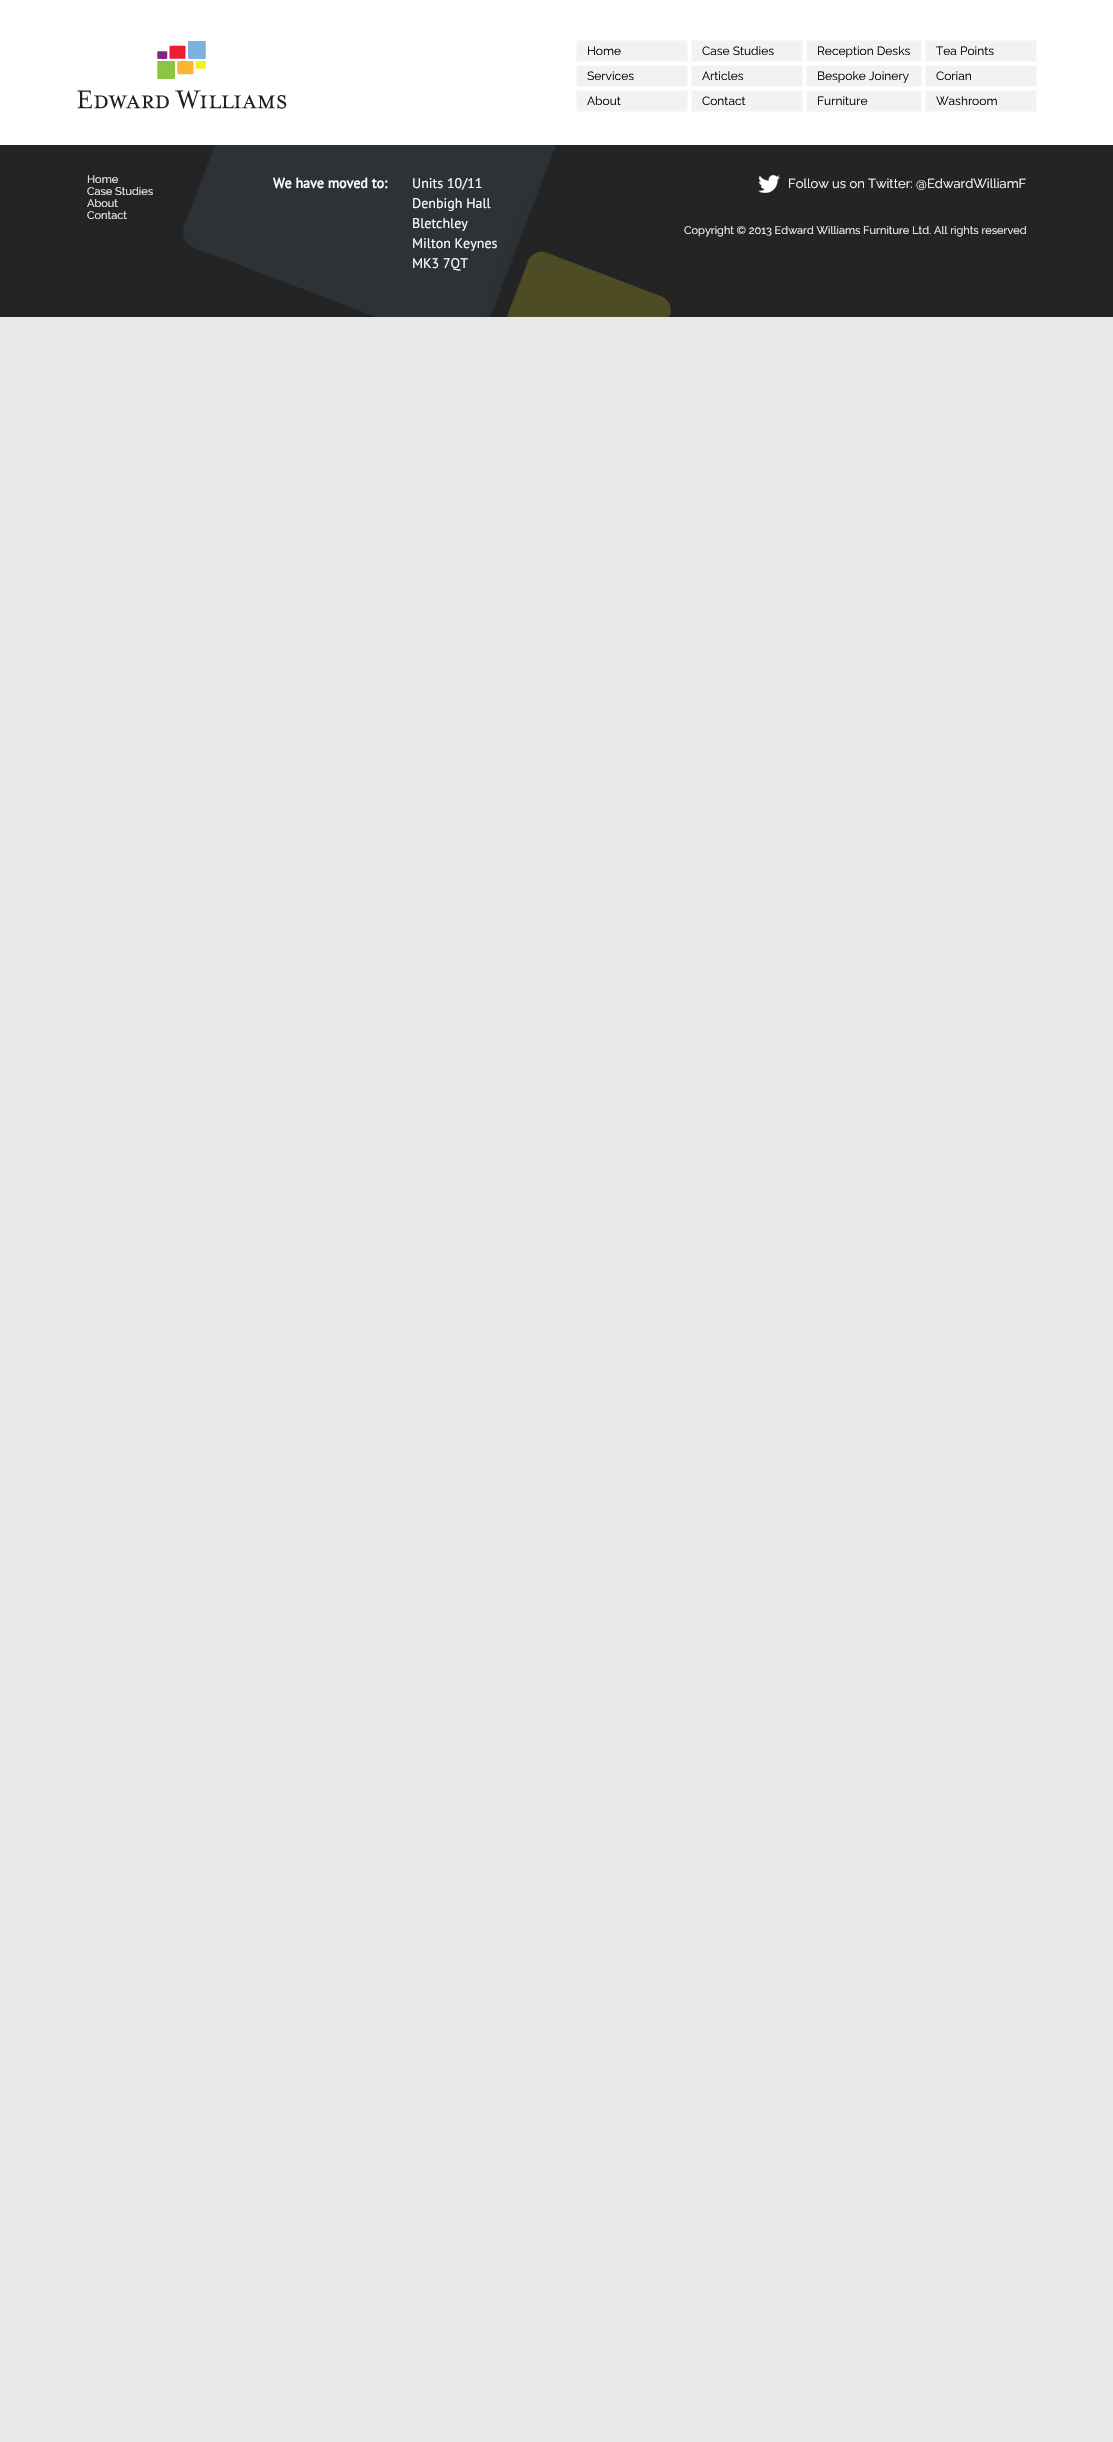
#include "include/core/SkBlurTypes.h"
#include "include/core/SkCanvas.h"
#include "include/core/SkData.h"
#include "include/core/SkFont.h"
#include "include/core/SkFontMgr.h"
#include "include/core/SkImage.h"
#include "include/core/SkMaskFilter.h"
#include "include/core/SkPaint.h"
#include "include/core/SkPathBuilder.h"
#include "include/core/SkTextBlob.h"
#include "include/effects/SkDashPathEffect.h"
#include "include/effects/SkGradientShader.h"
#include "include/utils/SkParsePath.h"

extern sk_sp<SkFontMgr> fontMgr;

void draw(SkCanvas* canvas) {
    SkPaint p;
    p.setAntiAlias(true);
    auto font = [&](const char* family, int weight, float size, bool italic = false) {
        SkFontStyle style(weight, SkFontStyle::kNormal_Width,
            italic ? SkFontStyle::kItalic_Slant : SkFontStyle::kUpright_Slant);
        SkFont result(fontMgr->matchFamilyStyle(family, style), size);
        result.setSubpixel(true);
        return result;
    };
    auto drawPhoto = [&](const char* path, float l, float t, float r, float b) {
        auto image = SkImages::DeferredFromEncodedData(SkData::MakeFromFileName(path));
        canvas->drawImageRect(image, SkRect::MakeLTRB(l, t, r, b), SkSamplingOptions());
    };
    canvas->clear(0xFFE7E8E9);
    p.setColor(0xFFFFFFFF);
    canvas->drawRect(SkRect::MakeLTRB(0, 0, 1113, 145), p);
    drawPhoto("media/1.png", 77, 41, 287, 109);
    p.setColor(0xFFF1F2F2);
    canvas->drawRect(SkRect::MakeLTRB(576.5f, 40.5f, 687.5f, 61.5f), p);
    p.setStyle(SkPaint::kStroke_Style);
    p.setStrokeWidth(1);
    p.setColor(0xFFF8F9F9);
    canvas->drawRect(SkRect::MakeLTRB(576.5f, 40.5f, 687.5f, 61.5f), p);
    auto font1 = font("Raleway", 100, 12);
    p.setStyle(SkPaint::kFill_Style);
    p.setColor(0xFF000000);
    canvas->drawString("Home", 587, 55, font1, p);
    p.setColor(0xFFF1F2F2);
    canvas->drawRect(SkRect::MakeLTRB(576.5f, 65.5f, 687.5f, 86.5f), p);
    p.setStyle(SkPaint::kStroke_Style);
    p.setColor(0xFFF8F9F9);
    canvas->drawRect(SkRect::MakeLTRB(576.5f, 65.5f, 687.5f, 86.5f), p);
    p.setStyle(SkPaint::kFill_Style);
    p.setColor(0xFF000000);
    canvas->drawString("Services", 587, 80, font1, p);
    p.setColor(0xFFF1F2F2);
    canvas->drawRect(SkRect::MakeLTRB(576.5f, 90.5f, 687.5f, 111.5f), p);
    p.setStyle(SkPaint::kStroke_Style);
    p.setColor(0xFFF8F9F9);
    canvas->drawRect(SkRect::MakeLTRB(576.5f, 90.5f, 687.5f, 111.5f), p);
    p.setStyle(SkPaint::kFill_Style);
    p.setColor(0xFF000000);
    canvas->drawString("About", 587, 105, font1, p);
    p.setColor(0xFFF1F2F2);
    canvas->drawRect(SkRect::MakeLTRB(691.5f, 40.5f, 802.5f, 61.5f), p);
    p.setStyle(SkPaint::kStroke_Style);
    p.setColor(0xFFF8F9F9);
    canvas->drawRect(SkRect::MakeLTRB(691.5f, 40.5f, 802.5f, 61.5f), p);
    p.setStyle(SkPaint::kFill_Style);
    p.setColor(0xFF000000);
    canvas->drawString("Case Studies", 702, 55, font1, p);
    p.setColor(0xFFF1F2F2);
    canvas->drawRect(SkRect::MakeLTRB(691.5f, 65.5f, 802.5f, 86.5f), p);
    p.setStyle(SkPaint::kStroke_Style);
    p.setColor(0xFFF8F9F9);
    canvas->drawRect(SkRect::MakeLTRB(691.5f, 65.5f, 802.5f, 86.5f), p);
    p.setStyle(SkPaint::kFill_Style);
    p.setColor(0xFF000000);
    canvas->drawString("Articles", 702, 80, font1, p);
    p.setColor(0xFFF1F2F2);
    canvas->drawRect(SkRect::MakeLTRB(691.5f, 90.5f, 802.5f, 111.5f), p);
    p.setStyle(SkPaint::kStroke_Style);
    p.setColor(0xFFF8F9F9);
    canvas->drawRect(SkRect::MakeLTRB(691.5f, 90.5f, 802.5f, 111.5f), p);
    p.setStyle(SkPaint::kFill_Style);
    p.setColor(0xFF000000);
    canvas->drawString("Contact", 702, 105, font1, p);
    p.setColor(0xFFF1F2F2);
    canvas->drawRect(SkRect::MakeLTRB(806.5f, 40.5f, 921.5f, 61.5f), p);
    p.setStyle(SkPaint::kStroke_Style);
    p.setColor(0xFFF8F9F9);
    canvas->drawRect(SkRect::MakeLTRB(806.5f, 40.5f, 921.5f, 61.5f), p);
    p.setStyle(SkPaint::kFill_Style);
    p.setColor(0xFF000000);
    canvas->drawString("Reception Desks", 817, 55, font1, p);
    p.setColor(0xFFF1F2F2);
    canvas->drawRect(SkRect::MakeLTRB(806.5f, 65.5f, 921.5f, 86.5f), p);
    p.setStyle(SkPaint::kStroke_Style);
    p.setColor(0xFFF8F9F9);
    canvas->drawRect(SkRect::MakeLTRB(806.5f, 65.5f, 921.5f, 86.5f), p);
    p.setStyle(SkPaint::kFill_Style);
    p.setColor(0xFF000000);
    canvas->drawString("Bespoke Joinery", 817, 80, font1, p);
    p.setColor(0xFFF1F2F2);
    canvas->drawRect(SkRect::MakeLTRB(806.5f, 90.5f, 921.5f, 111.5f), p);
    p.setStyle(SkPaint::kStroke_Style);
    p.setColor(0xFFF8F9F9);
    canvas->drawRect(SkRect::MakeLTRB(806.5f, 90.5f, 921.5f, 111.5f), p);
    p.setStyle(SkPaint::kFill_Style);
    p.setColor(0xFF000000);
    canvas->drawString("Furniture", 817, 105, font1, p);
    p.setColor(0xFFF1F2F2);
    canvas->drawRect(SkRect::MakeLTRB(925.5f, 40.5f, 1036.5f, 61.5f), p);
    p.setStyle(SkPaint::kStroke_Style);
    p.setColor(0xFFF8F9F9);
    canvas->drawRect(SkRect::MakeLTRB(925.5f, 40.5f, 1036.5f, 61.5f), p);
    p.setStyle(SkPaint::kFill_Style);
    p.setColor(0xFF000000);
    canvas->drawString("Tea Points", 936, 55, font1, p);
    p.setColor(0xFFF1F2F2);
    canvas->drawRect(SkRect::MakeLTRB(925.5f, 65.5f, 1036.5f, 86.5f), p);
    p.setStyle(SkPaint::kStroke_Style);
    p.setColor(0xFFF8F9F9);
    canvas->drawRect(SkRect::MakeLTRB(925.5f, 65.5f, 1036.5f, 86.5f), p);
    p.setStyle(SkPaint::kFill_Style);
    p.setColor(0xFF000000);
    canvas->drawString("Corian", 936, 80, font1, p);
    p.setColor(0xFFF1F2F2);
    canvas->drawRect(SkRect::MakeLTRB(925.5f, 90.5f, 1036.5f, 111.5f), p);
    p.setStyle(SkPaint::kStroke_Style);
    p.setColor(0xFFF8F9F9);
    canvas->drawRect(SkRect::MakeLTRB(925.5f, 90.5f, 1036.5f, 111.5f), p);
    p.setStyle(SkPaint::kFill_Style);
    p.setColor(0xFF000000);
    canvas->drawString("Washroom", 936, 105, font1, p);
    p.setColor(0xFF232423);
    canvas->drawRect(SkRect::MakeLTRB(0, 145, 1113, 317), p);
    drawPhoto("media/2.png", 183, 145, 671, 317);
    auto font2 = font("Raleway", 100, 11);
    p.setColor(0xFFFFFFFF);
    {
        const struct { const char* s; float x, y; } items[] = {
            {"Home", 87, 183},
            {"Case Studies", 87, 195},
            {"About", 87, 207},
            {"Contact", 87, 219},
        };
        for (auto [s, x, y] : items) {
            canvas->drawString(s, x, y, font2, p);
        }
    }
    auto font3 = font("PT Sans", 700, 14);
    canvas->drawString("We have moved to:", 273, 188, font3, p);
    auto font4 = font("PT Sans", 400, 14);
    {
        const struct { const char* s; float x, y; } items[] = {
            {"Units 10/11", 412, 188},
            {"Denbigh Hall", 412, 208},
            {"Bletchley", 412, 228},
            {"Milton Keynes", 412, 248},
            {"MK3 7QT", 412, 268},
        };
        for (auto [s, x, y] : items) {
            canvas->drawString(s, x, y, font4, p);
        }
    }
    drawPhoto("media/3.png", 758, 175, 780, 193);
    auto font5 = font("Raleway", 100, 13);
    canvas->drawString("Follow us on Twitter: @EdwardWilliamF", 788, 188, font5, p);
    canvas->drawString("Copyright © 2013 Edward Williams Furniture Ltd. All rights reserved", 684, 234, font2, p);
}
